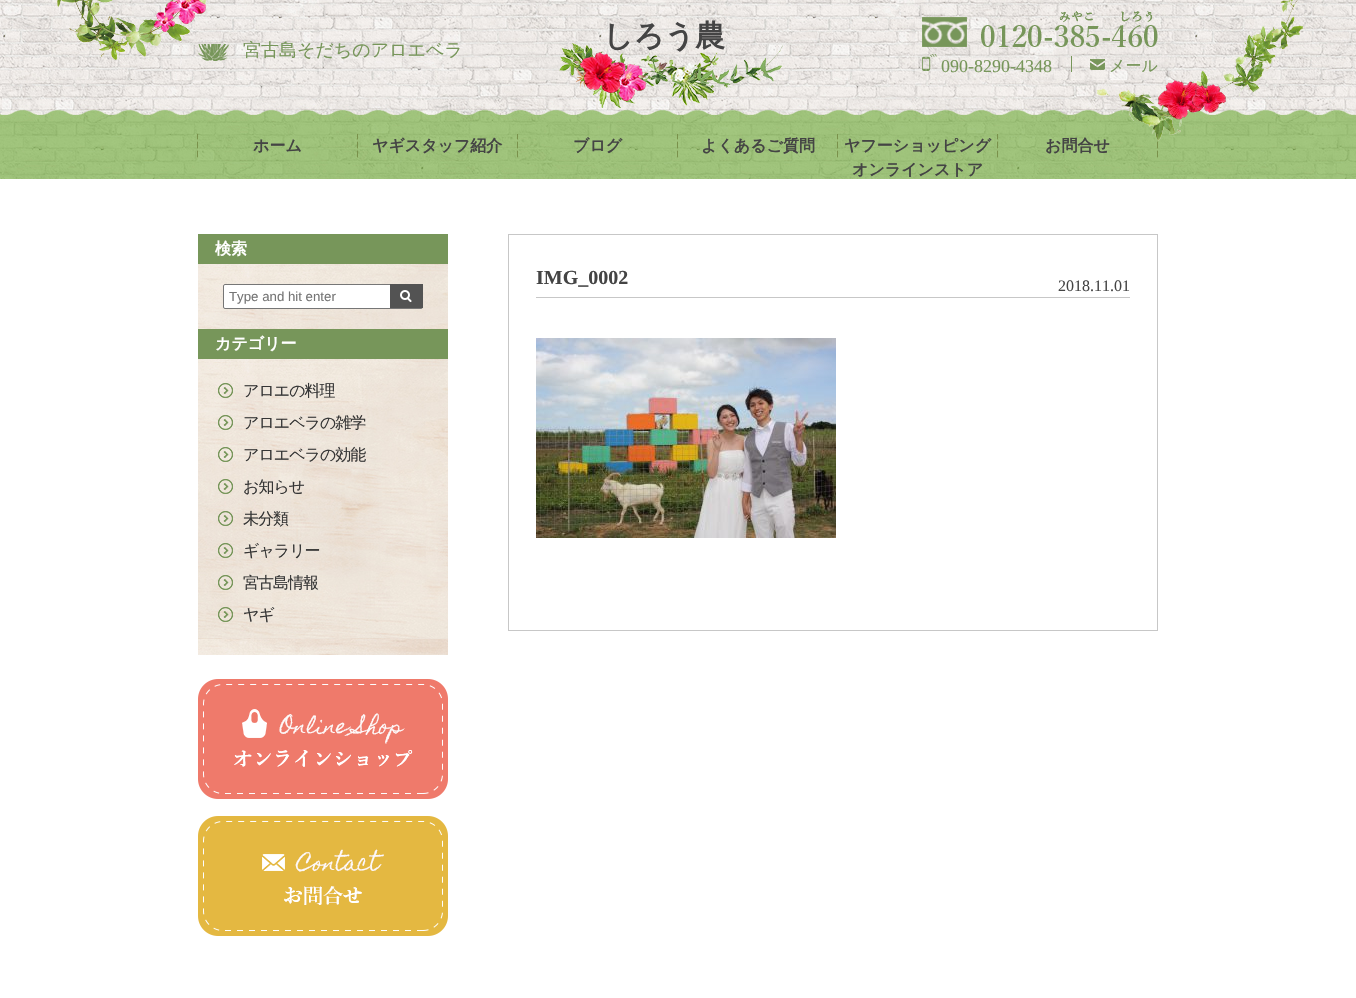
#include "include/core/SkBlurTypes.h"
#include "include/core/SkCanvas.h"
#include "include/core/SkData.h"
#include "include/core/SkFont.h"
#include "include/core/SkFontMgr.h"
#include "include/core/SkImage.h"
#include "include/core/SkMaskFilter.h"
#include "include/core/SkPaint.h"
#include "include/core/SkPathBuilder.h"
#include "include/core/SkTextBlob.h"
#include "include/effects/SkDashPathEffect.h"
#include "include/effects/SkGradientShader.h"
#include "include/utils/SkParsePath.h"

extern sk_sp<SkFontMgr> fontMgr;

void draw(SkCanvas* canvas) {
    SkPaint p;
    p.setAntiAlias(true);
    auto font = [&](const char* family, int weight, float size, bool italic = false) {
        SkFontStyle style(weight, SkFontStyle::kNormal_Width,
            italic ? SkFontStyle::kItalic_Slant : SkFontStyle::kUpright_Slant);
        SkFont result(fontMgr->matchFamilyStyle(family, style), size);
        result.setSubpixel(true);
        return result;
    };
    auto drawTracked = [&](const char* s, float x, float y, const SkFont& font, const SkPaint& ink, float letter, float word) {
        std::vector<SkGlyphID> glyphs(font.countText(s, strlen(s), SkTextEncoding::kUTF8));
        std::vector<float> xs(glyphs.size());
        font.textToGlyphs(s, strlen(s), SkTextEncoding::kUTF8, glyphs);
        font.getXPos(glyphs, xs, x);
        float extra = 0;
        for (size_t i = 0; i < glyphs.size(); i++) {
            xs[i] += extra;
            extra += letter + word * (glyphs[i] == font.unicharToGlyph(' '));
        }
        canvas->drawTextBlob(SkTextBlob::MakeFromPosHGlyphs(glyphs, xs, y, font), 0, 0, ink);
    };
    auto drawPhoto = [&](const char* path, float l, float t, float r, float b) {
        auto image = SkImages::DeferredFromEncodedData(SkData::MakeFromFileName(path));
        canvas->drawImageRect(image, SkRect::MakeLTRB(l, t, r, b), SkSamplingOptions());
    };
    canvas->clear(0xFFFFFFFF);
    drawPhoto("media/1.png", 0, 0, 1356, 179);
    drawPhoto("media/3.png", 198, 44, 229, 61);
    drawPhoto("media/2.png", 56, 0, 207, 60);
    auto font1 = font("WenQuanYi Zen Hei", 500, 18);
    p.setColor(0xFF77965A);
    canvas->drawString("宮古島そだちのアロエベラ", 243, 56, font1, p);
    auto font2 = font("WenQuanYi Zen Hei", 700, 30);
    p.setColor(0xFF444444);
    canvas->drawString("しろう農", 603, 46, font2, p);
    drawPhoto("media/6.png", 922, 11, 1158, 47);
    drawPhoto("media/4.png", 1097, 0, 1303, 141);
    drawPhoto("media/5.png", 559, 43, 783, 108);
    drawPhoto("media/7.png", 922, 54, 937, 71);
    auto font3 = font("Liberation Serif", 400, 18);
    p.setColor(0xFF77965A);
    canvas->drawString("090-8290-4348", 941, 72, font3, p);
    canvas->drawRect(SkRect::MakeLTRB(1071, 56, 1072, 72), p);
    drawPhoto("media/8.png", 1090, 59, 1105, 70);
    auto font4 = font("WenQuanYi Zen Hei", 500, 16);
    canvas->drawString("メール", 1109, 71, font4, p);
    drawPhoto("media/9.png", 197, 134, 198, 158);
    auto font5 = font("WenQuanYi Zen Hei", 700, 16);
    p.setColor(0xFF444444);
    canvas->drawString("ホーム", 253, 151, font5, p);
    drawPhoto("media/10.png", 357, 134, 358, 158);
    canvas->drawString("ヤギスタッフ紹介", 372, 151, font5, p);
    drawPhoto("media/11.png", 517, 134, 518, 158);
    canvas->drawString("ブログ", 573, 151, font5, p);
    drawPhoto("media/12.png", 677, 134, 678, 158);
    canvas->drawString("よくあるご質問", 701, 151, font5, p);
    drawPhoto("media/13.png", 837, 134, 838, 158);
    canvas->drawString("ヤフーショッピング", 844, 151, font5, p);
    canvas->drawString("オンラインストア", 852, 175, font5, p);
    drawPhoto("media/14.png", 997, 134, 998, 158);
    canvas->drawString("お問合せ", 1045, 151, font5, p);
    drawPhoto("media/15.png", 1157, 134, 1158, 158);
    drawPhoto("media/16.png", 198, 264, 448, 329);
    p.setColor(0xFF77965A);
    canvas->drawRect(SkRect::MakeLTRB(198, 234, 448, 264), p);
    p.setColor(0xFFFFFFFF);
    canvas->drawString("検索", 215, 254, font5, p);
    canvas->drawRoundRect(SkRect::MakeLTRB(223.5f, 284.5f, 422.5f, 308.5f), 1.5f, 1.5f, p);
    p.setStyle(SkPaint::kStroke_Style);
    p.setStrokeWidth(1);
    p.setColor(0xFF767676);
    canvas->drawRoundRect(SkRect::MakeLTRB(223.5f, 284.5f, 422.5f, 308.5f), 1.5f, 1.5f, p);
    auto font6 = font("Liberation Sans", 400, 13.25f);
    p.setStyle(SkPaint::kFill_Style);
    p.setColor(0xFF757575);
    canvas->drawString("Type and hit enter", 229, 301, font6, p);
    drawPhoto("media/17.png", 390, 284, 423, 308);
    drawPhoto("media/18.png", 198, 359, 448, 655);
    p.setColor(0xFF77965A);
    canvas->drawRect(SkRect::MakeLTRB(198, 329, 448, 359), p);
    p.setColor(0xFFFFFFFF);
    canvas->drawString("カテゴリー", 215, 349, font5, p);
    drawPhoto("media/19.png", 218, 383, 233, 398);
    p.setColor(0xFF353535);
    drawTracked("アロエの料理", 243, 396, font4, p, -1, 0);
    drawPhoto("media/20.png", 218, 415, 233, 430);
    drawTracked("アロエベラの雑学", 243, 428, font4, p, -1, 0);
    drawPhoto("media/21.png", 218, 447, 233, 462);
    drawTracked("アロエベラの効能", 243, 460, font4, p, -1, 0);
    drawPhoto("media/22.png", 218, 479, 233, 494);
    drawTracked("お知らせ", 243, 492, font4, p, -1, 0);
    drawPhoto("media/23.png", 218, 511, 233, 526);
    drawTracked("未分類", 243, 524, font4, p, -1, 0);
    drawPhoto("media/24.png", 218, 543, 233, 558);
    drawTracked("ギャラリー", 243, 556, font4, p, -1, 0);
    drawPhoto("media/25.png", 218, 575, 233, 590);
    drawTracked("宮古島情報", 243, 588, font4, p, -1, 0);
    drawPhoto("media/26.png", 218, 607, 233, 622);
    drawTracked("ヤギ", 243, 620, font4, p, -1, 0);
    drawPhoto("media/27.png", 198, 679, 448, 799);
    drawPhoto("media/28.png", 198, 816, 448, 936);
    p.setStyle(SkPaint::kStroke_Style);
    p.setColor(0xFFC7C7C7);
    canvas->drawRect(SkRect::MakeLTRB(508.5f, 234.5f, 1157.5f, 630.5f), p);
    p.setStyle(SkPaint::kFill_Style);
    canvas->drawRect(SkRect::MakeLTRB(536, 297, 1130, 298), p);
    auto font7 = font("Liberation Serif", 700, 20);
    p.setColor(0xFF444444);
    canvas->drawString("IMG_0002", 536, 284, font7, p);
    auto font8 = font("Liberation Serif", 400, 16);
    canvas->drawString("2018.11.01", 1058, 291, font8, p);
    drawPhoto("media/29.png", 536, 338, 836, 538);
}
